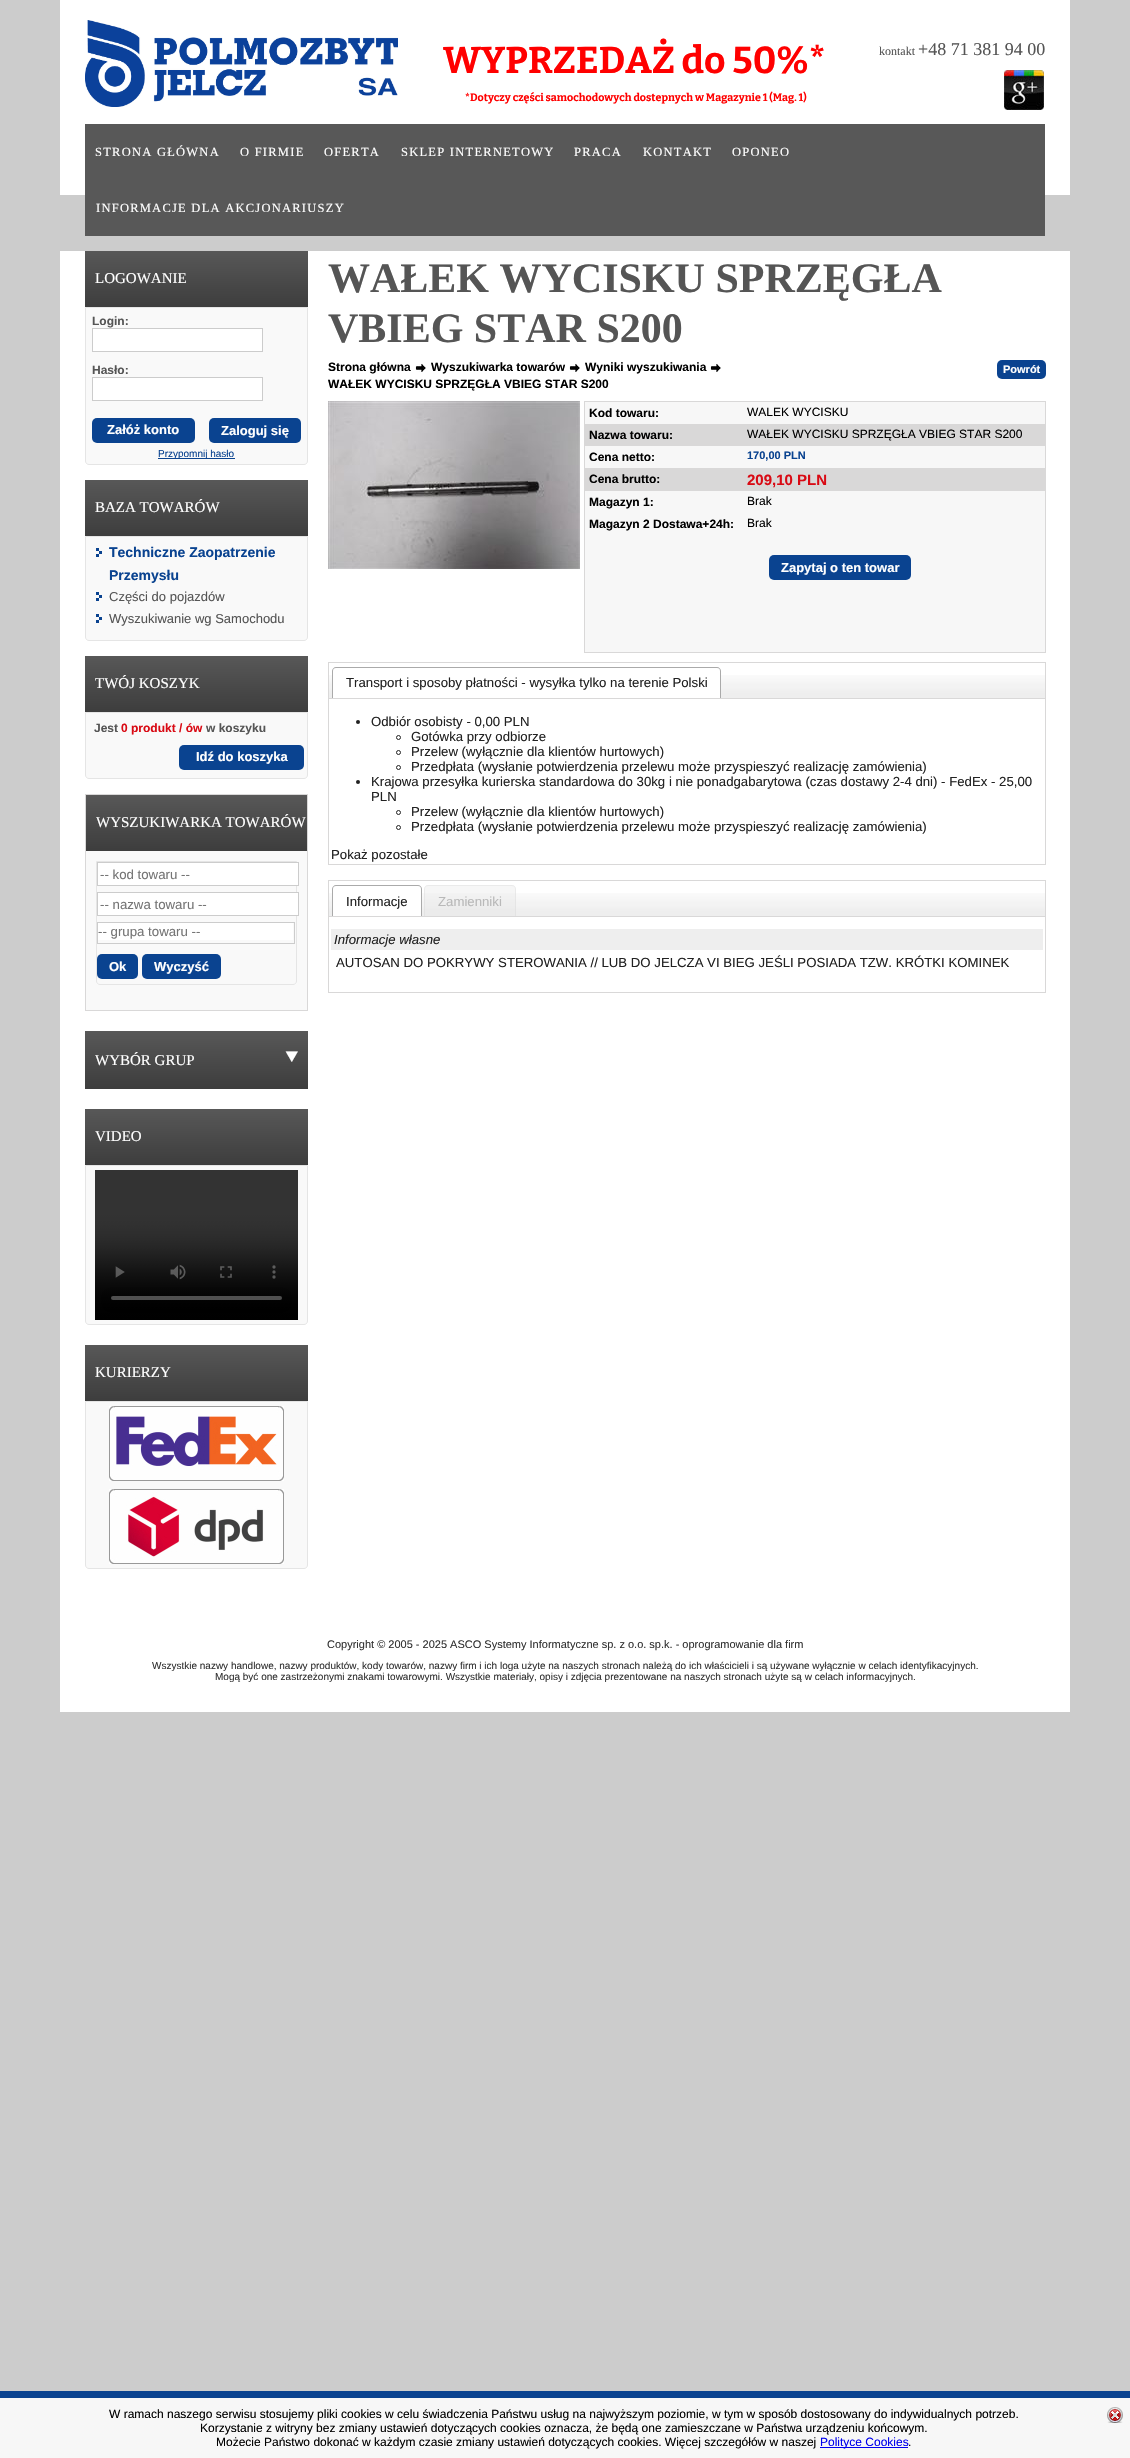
#include "include/core/SkBlurTypes.h"
#include "include/core/SkCanvas.h"
#include "include/core/SkData.h"
#include "include/core/SkFont.h"
#include "include/core/SkFontMgr.h"
#include "include/core/SkImage.h"
#include "include/core/SkMaskFilter.h"
#include "include/core/SkPaint.h"
#include "include/core/SkPathBuilder.h"
#include "include/core/SkTextBlob.h"
#include "include/effects/SkDashPathEffect.h"
#include "include/effects/SkGradientShader.h"
#include "include/utils/SkParsePath.h"

extern sk_sp<SkFontMgr> fontMgr;

void draw(SkCanvas* canvas) {
    SkPaint p;
    p.setAntiAlias(true);
    auto font = [&](const char* family, int weight, float size, bool italic = false) {
        SkFontStyle style(weight, SkFontStyle::kNormal_Width,
            italic ? SkFontStyle::kItalic_Slant : SkFontStyle::kUpright_Slant);
        SkFont result(fontMgr->matchFamilyStyle(family, style), size);
        result.setSubpixel(true);
        return result;
    };
    auto drawTracked = [&](const char* s, float x, float y, const SkFont& font, const SkPaint& ink, float letter, float word) {
        std::vector<SkGlyphID> glyphs(font.countText(s, strlen(s), SkTextEncoding::kUTF8));
        std::vector<float> xs(glyphs.size());
        font.textToGlyphs(s, strlen(s), SkTextEncoding::kUTF8, glyphs);
        font.getXPos(glyphs, xs, x);
        float extra = 0;
        for (size_t i = 0; i < glyphs.size(); i++) {
            xs[i] += extra;
            extra += letter + word * (glyphs[i] == font.unicharToGlyph(' '));
        }
        canvas->drawTextBlob(SkTextBlob::MakeFromPosHGlyphs(glyphs, xs, y, font), 0, 0, ink);
    };
    auto drawPhoto = [&](const char* path, float l, float t, float r, float b) {
        auto image = SkImages::DeferredFromEncodedData(SkData::MakeFromFileName(path));
        canvas->drawImageRect(image, SkRect::MakeLTRB(l, t, r, b), SkSamplingOptions());
    };
    canvas->clear(0xFFCCCCCC);
    p.setColor(0xFFFFFFFF);
    canvas->drawRect(SkRect::MakeLTRB(60, 0, 1070, 195), p);
    drawPhoto("media/1.png", 85, 20, 398, 107);
    auto font1 = font("Bitter", 700, 37.25f);
    p.setColor(0xFFFF0000);
    canvas->drawString("WYPRZEDAŻ do 50%*", 443, 73, font1, p);
    auto font2 = font("Bitter", 700, 10.7f);
    canvas->drawString("*Dotyczy części samochodowych dostepnych w Magazynie 1 (Mag. 1)", 465, 101, font2, p);
    auto font3 = font("Liberation Serif", 400, 12);
    p.setColor(0xFF555555);
    canvas->drawString("kontakt", 879, 55, font3, p);
    auto font4 = font("Liberation Serif", 400, 18);
    canvas->drawString("+48 71 381 94 00", 918, 55, font4, p);
    drawPhoto("media/2.png", 1004, 70, 1044, 110);
    p.setColor(0xFFF7F7F7);
    canvas->drawRect(SkRect::MakeLTRB(0, 2398, 1130, 2458), p);
    p.setColor(0xFF0A4390);
    canvas->drawRect(SkRect::MakeLTRB(0, 2391, 1130, 2398), p);
    auto font5 = font("Liberation Sans", 400, 12);
    p.setColor(0xFF000000);
    {
        const struct { const char* s; float x, y; } items[] = {
            {"W ramach naszego serwisu stosujemy pliki cookies w celu świadczenia Państwu usług na najwyższym poziomie, w tym w sposób dostosowany do indywidualnych potrzeb.", 109, 2418},
            {"Korzystanie z witryny bez zmiany ustawień dotyczących cookies oznacza, że będą one zamieszczane w Państwa urządzeniu końcowym.", 200, 2432},
            {"Możecie Państwo dokonać w każdym czasie zmiany ustawień dotyczących cookies. Więcej szczegółów w naszej", 216, 2446},
        };
        for (auto [s, x, y] : items) {
            canvas->drawString(s, x, y, font5, p);
        }
    }
    p.setColor(0xFF0000EE);
    canvas->drawRect(SkRect::MakeLTRB(820, 2447, 908, 2448), p);
    canvas->drawString("Polityce Cookies", 820, 2446, font5, p);
    p.setColor(0xFF000000);
    canvas->drawString(".", 908, 2446, font5, p);
    drawPhoto("media/3.png", 1107, 2407, 1123, 2423);
    p.setColor(0xFF585858);
    canvas->drawRect(SkRect::MakeLTRB(85, 124, 1045, 236), p);
    auto font6 = font("Liberation Serif", 400, 12.5f);
    p.setColor(0xFFFFFFFF);
    {
        const struct { const char* s; float x, y; } items[] = {
            {"STRONA GŁÓWNA", 95, 156},
            {"O FIRMIE", 240, 156},
            {"OFERTA", 324, 156},
            {"SKLEP INTERNETOWY", 401, 156},
            {"PRACA", 574, 156},
            {"KONTAKT", 643, 156},
            {"OPONEO", 732, 156},
            {"INFORMACJE DLA AKCJONARIUSZY", 96, 212},
        };
        for (auto [s, x, y] : items) {
            drawTracked(s, x, y, font6, p, 1.25f, 0);
        }
    }
    canvas->drawRect(SkRect::MakeLTRB(60, 251, 1070, 1712), p);
    {
        const SkColor colors[] = {0xFF585858, 0xFF3D3D3D};
        const float stops[] = {0, 1};
        const SkPoint ends[] = {{197, 251}, {197, 307}};
        p.setShader(SkGradientShader::MakeLinear(ends, colors, stops, 2, SkTileMode::kClamp));
        p.setAlpha(255);
    }
    canvas->drawRect(SkRect::MakeLTRB(85, 251, 308, 307), p);
    auto font7 = font("Liberation Serif", 400, 15);
    p.setShader(nullptr);
    p.setColor(0xFFFFFFFF);
    canvas->drawString("LOGOWANIE", 95, 283, font7, p);
    p.setColor(0xFFF9F9F9);
    canvas->drawPath(SkPathBuilder().moveTo(85.5f, 307.5f).lineTo(307.5f, 307.5f).lineTo(307.5f, 461).cubicTo(307.5f, 463, 306, 464.5f, 304, 464.5f).lineTo(89, 464.5f).cubicTo(87, 464.5f, 85.5f, 463, 85.5f, 461).close().detach(), p);
    p.setStyle(SkPaint::kStroke_Style);
    p.setStrokeWidth(1);
    p.setColor(0xFFE5E5E5);
    canvas->drawPath(SkPathBuilder().moveTo(85.5f, 307.5f).lineTo(307.5f, 307.5f).lineTo(307.5f, 461).cubicTo(307.5f, 463, 306, 464.5f, 304, 464.5f).lineTo(89, 464.5f).cubicTo(87, 464.5f, 85.5f, 463, 85.5f, 461).close().detach(), p);
    auto font8 = font("Liberation Sans", 700, 12);
    p.setStyle(SkPaint::kFill_Style);
    p.setColor(0xFF555555);
    canvas->drawString("Login:", 92, 325, font8, p);
    p.setColor(0xFFFFFFFF);
    canvas->drawRect(SkRect::MakeLTRB(92.5f, 328.5f, 262.5f, 351.5f), p);
    p.setStyle(SkPaint::kStroke_Style);
    p.setColor(0xFFCCCCCC);
    canvas->drawRect(SkRect::MakeLTRB(92.5f, 328.5f, 262.5f, 351.5f), p);
    p.setStyle(SkPaint::kFill_Style);
    p.setColor(0xFF555555);
    canvas->drawString("Hasło:", 92, 374, font8, p);
    p.setColor(0xFFFFFFFF);
    canvas->drawRect(SkRect::MakeLTRB(92.5f, 377.5f, 262.5f, 400.5f), p);
    p.setStyle(SkPaint::kStroke_Style);
    p.setColor(0xFFCCCCCC);
    canvas->drawRect(SkRect::MakeLTRB(92.5f, 377.5f, 262.5f, 400.5f), p);
    p.setStyle(SkPaint::kFill_Style);
    p.setColor(0xFF0A4390);
    canvas->drawRoundRect(SkRect::MakeLTRB(92, 418, 195, 443), 5, 5, p);
    auto font9 = font("Liberation Sans", 700, 13);
    p.setColor(0xFFFFFFFF);
    canvas->drawString("Załóż konto", 107, 434, font9, p);
    p.setColor(0xFF0A4390);
    canvas->drawRect(SkRect::MakeLTRB(158, 458, 235, 459), p);
    auto font10 = font("Liberation Sans", 400, 10);
    canvas->drawString("Przypomnij hasło", 158, 457, font10, p);
    canvas->drawRoundRect(SkRect::MakeLTRB(209, 418, 301, 443), 5, 5, p);
    p.setColor(0xFFFFFFFF);
    canvas->drawString("Zaloguj się", 221, 435, font9, p);
    {
        const SkColor colors[] = {0xFF585858, 0xFF3D3D3D};
        const float stops[] = {0, 1};
        const SkPoint ends[] = {{197, 480}, {197, 536}};
        p.setShader(SkGradientShader::MakeLinear(ends, colors, stops, 2, SkTileMode::kClamp));
        p.setAlpha(255);
    }
    canvas->drawRect(SkRect::MakeLTRB(85, 480, 308, 536), p);
    p.setShader(nullptr);
    p.setColor(0xFFFFFFFF);
    canvas->drawString("BAZA TOWARÓW", 95, 512, font7, p);
    p.setColor(0xFFF9F9F9);
    canvas->drawPath(SkPathBuilder().moveTo(85.5f, 536.5f).lineTo(307.5f, 536.5f).lineTo(307.5f, 637).cubicTo(307.5f, 639, 306, 640.5f, 304, 640.5f).lineTo(89, 640.5f).cubicTo(87, 640.5f, 85.5f, 639, 85.5f, 637).close().detach(), p);
    p.setStyle(SkPaint::kStroke_Style);
    p.setColor(0xFFE5E5E5);
    canvas->drawPath(SkPathBuilder().moveTo(85.5f, 536.5f).lineTo(307.5f, 536.5f).lineTo(307.5f, 637).cubicTo(307.5f, 639, 306, 640.5f, 304, 640.5f).lineTo(89, 640.5f).cubicTo(87, 640.5f, 85.5f, 639, 85.5f, 637).close().detach(), p);
    drawPhoto("media/4.png", 96, 548, 102, 557);
    auto font11 = font("Liberation Sans", 700, 14);
    p.setStyle(SkPaint::kFill_Style);
    p.setColor(0xFF0A4390);
    canvas->drawString("Techniczne Zaopatrzenie", 109, 557, font11, p);
    canvas->drawString("Przemysłu", 109, 580, font11, p);
    drawPhoto("media/4.png", 96, 592, 102, 601);
    auto font12 = font("Liberation Sans", 400, 13);
    p.setColor(0xFF555555);
    canvas->drawString("Części do pojazdów", 109, 601, font12, p);
    drawPhoto("media/4.png", 96, 614, 102, 623);
    canvas->drawString("Wyszukiwanie wg Samochodu", 109, 623, font12, p);
    {
        const SkColor colors[] = {0xFF585858, 0xFF3D3D3D};
        const float stops[] = {0, 1};
        const SkPoint ends[] = {{197, 656}, {197, 712}};
        p.setShader(SkGradientShader::MakeLinear(ends, colors, stops, 2, SkTileMode::kClamp));
        p.setAlpha(255);
    }
    canvas->drawRect(SkRect::MakeLTRB(85, 656, 308, 712), p);
    p.setShader(nullptr);
    p.setColor(0xFFFFFFFF);
    canvas->drawString("TWÓJ KOSZYK", 95, 688, font7, p);
    p.setColor(0xFFF9F9F9);
    canvas->drawPath(SkPathBuilder().moveTo(85.5f, 712.5f).lineTo(307.5f, 712.5f).lineTo(307.5f, 775).cubicTo(307.5f, 777, 306, 778.5f, 304, 778.5f).lineTo(89, 778.5f).cubicTo(87, 778.5f, 85.5f, 777, 85.5f, 775).close().detach(), p);
    p.setStyle(SkPaint::kStroke_Style);
    p.setColor(0xFFE5E5E5);
    canvas->drawPath(SkPathBuilder().moveTo(85.5f, 712.5f).lineTo(307.5f, 712.5f).lineTo(307.5f, 775).cubicTo(307.5f, 777, 306, 778.5f, 304, 778.5f).lineTo(89, 778.5f).cubicTo(87, 778.5f, 85.5f, 777, 85.5f, 775).close().detach(), p);
    p.setStyle(SkPaint::kFill_Style);
    p.setColor(0xFF555555);
    canvas->drawString("Jest", 94, 732, font8, p);
    p.setColor(0xFFD90A14);
    canvas->drawString("0 produkt / ów", 121, 732, font8, p);
    p.setColor(0xFF555555);
    canvas->drawString("w koszyku", 206, 732, font8, p);
    p.setColor(0xFF0A4390);
    canvas->drawRoundRect(SkRect::MakeLTRB(179, 745, 304, 770), 5, 5, p);
    p.setColor(0xFFFFFFFF);
    canvas->drawString("Idź do koszyka", 196, 761, font9, p);
    p.setColor(0xFFF9F9F9);
    canvas->drawRect(SkRect::MakeLTRB(86, 851, 307, 1010), p);
    p.setStyle(SkPaint::kStroke_Style);
    p.setColor(0xFFD9D8D8);
    canvas->drawRect(SkRect::MakeLTRB(85.5f, 794.5f, 307.5f, 1010.5f), p);
    p.setStyle(SkPaint::kFill_Style);
    {
        const SkColor colors[] = {0xFF585858, 0xFF3D3D3D};
        const float stops[] = {0, 1};
        const SkPoint ends[] = {{197, 795}, {197, 851}};
        p.setShader(SkGradientShader::MakeLinear(ends, colors, stops, 2, SkTileMode::kClamp));
        p.setAlpha(255);
    }
    canvas->drawRect(SkRect::MakeLTRB(86, 795, 307, 851), p);
    p.setShader(nullptr);
    p.setColor(0xFFFFFFFF);
    canvas->drawString("WYSZUKIWARKA TOWARÓW", 96, 827, font7, p);
    p.setStyle(SkPaint::kStroke_Style);
    p.setColor(0xFFE5E5E5);
    canvas->drawPath(SkPathBuilder().moveTo(96.5f, 861.5f).lineTo(296.5f, 861.5f).lineTo(296.5f, 981).cubicTo(296.5f, 983, 295, 984.5f, 293, 984.5f).lineTo(100, 984.5f).cubicTo(98, 984.5f, 96.5f, 983, 96.5f, 981).close().detach(), p);
    p.setStyle(SkPaint::kFill_Style);
    p.setColor(0xFFFFFFFF);
    canvas->drawRect(SkRect::MakeLTRB(97.5f, 862.5f, 298.5f, 885.5f), p);
    p.setStyle(SkPaint::kStroke_Style);
    p.setColor(0xFFCCCCCC);
    canvas->drawRect(SkRect::MakeLTRB(97.5f, 862.5f, 298.5f, 885.5f), p);
    auto font13 = font("Liberation Sans", 400, 13.25f);
    p.setStyle(SkPaint::kFill_Style);
    p.setColor(0xFF757575);
    canvas->drawString("-- kod towaru --", 100, 879, font13, p);
    p.setColor(0xFFFFFFFF);
    canvas->drawRect(SkRect::MakeLTRB(97.5f, 892.5f, 298.5f, 915.5f), p);
    p.setStyle(SkPaint::kStroke_Style);
    p.setColor(0xFFCCCCCC);
    canvas->drawRect(SkRect::MakeLTRB(97.5f, 892.5f, 298.5f, 915.5f), p);
    p.setStyle(SkPaint::kFill_Style);
    p.setColor(0xFF757575);
    canvas->drawString("-- nazwa towaru --", 100, 909, font13, p);
    p.setStyle(SkPaint::kStroke_Style);
    p.setColor(0xFFCCCCCC);
    canvas->drawRect(SkRect::MakeLTRB(97.5f, 922.5f, 294.5f, 943.5f), p);
    p.setStyle(SkPaint::kFill_Style);
    p.setColor(0xFFFFFFFF);
    canvas->drawRect(SkRect::MakeLTRB(98, 923, 293, 940), p);
    p.setColor(0xFF757575);
    canvas->drawString("-- grupa towaru --", 98, 936, font13, p);
    p.setColor(0xFF0A4390);
    canvas->drawRoundRect(SkRect::MakeLTRB(97, 954, 138, 979), 5, 5, p);
    p.setColor(0xFFFFFFFF);
    canvas->drawString("Ok", 109, 971, font9, p);
    p.setColor(0xFF0A4390);
    canvas->drawRoundRect(SkRect::MakeLTRB(142, 954, 221, 979), 5, 5, p);
    p.setColor(0xFFFFFFFF);
    canvas->drawString("Wyczyść", 154, 971, font9, p);
    {
        const SkColor colors[] = {0xFF585858, 0xFF3D3D3D};
        const float stops[] = {0, 1};
        const SkPoint ends[] = {{197, 1031}, {197, 1089}};
        p.setShader(SkGradientShader::MakeLinear(ends, colors, stops, 2, SkTileMode::kClamp));
        p.setAlpha(255);
    }
    canvas->drawRect(SkRect::MakeLTRB(85, 1031, 308, 1089), p);
    p.setShader(nullptr);
    p.setColor(0xFFFFFFFF);
    canvas->drawString("WYBÓR GRUP", 95, 1065, font7, p);
    auto font14 = font("FreeSans", 400, 22);
    canvas->drawString("⯆", 283, 1065, font14, p);
    {
        const SkColor colors[] = {0xFF585858, 0xFF3D3D3D};
        const float stops[] = {0, 1};
        const SkPoint ends[] = {{197, 1109}, {197, 1165}};
        p.setShader(SkGradientShader::MakeLinear(ends, colors, stops, 2, SkTileMode::kClamp));
        p.setAlpha(255);
    }
    canvas->drawRect(SkRect::MakeLTRB(85, 1109, 308, 1165), p);
    p.setShader(nullptr);
    p.setColor(0xFFFFFFFF);
    canvas->drawString("VIDEO", 95, 1141, font7, p);
    p.setColor(0xFFF9F9F9);
    canvas->drawPath(SkPathBuilder().moveTo(85.5f, 1165.5f).lineTo(307.5f, 1165.5f).lineTo(307.5f, 1321).cubicTo(307.5f, 1323, 306, 1324.5f, 304, 1324.5f).lineTo(89, 1324.5f).cubicTo(87, 1324.5f, 85.5f, 1323, 85.5f, 1321).close().detach(), p);
    p.setStyle(SkPaint::kStroke_Style);
    p.setColor(0xFFE5E5E5);
    canvas->drawPath(SkPathBuilder().moveTo(85.5f, 1165.5f).lineTo(307.5f, 1165.5f).lineTo(307.5f, 1321).cubicTo(307.5f, 1323, 306, 1324.5f, 304, 1324.5f).lineTo(89, 1324.5f).cubicTo(87, 1324.5f, 85.5f, 1323, 85.5f, 1321).close().detach(), p);
    drawPhoto("media/5.png", 95, 1170, 298, 1320);
    p.setStyle(SkPaint::kFill_Style);
    {
        const SkColor colors[] = {0xFF585858, 0xFF3D3D3D};
        const float stops[] = {0, 1};
        const SkPoint ends[] = {{197, 1345}, {197, 1401}};
        p.setShader(SkGradientShader::MakeLinear(ends, colors, stops, 2, SkTileMode::kClamp));
        p.setAlpha(255);
    }
    canvas->drawRect(SkRect::MakeLTRB(85, 1345, 308, 1401), p);
    p.setShader(nullptr);
    p.setColor(0xFFFFFFFF);
    canvas->drawString("KURIERZY", 95, 1377, font7, p);
    p.setColor(0xFFF9F9F9);
    canvas->drawPath(SkPathBuilder().moveTo(85.5f, 1401.5f).lineTo(307.5f, 1401.5f).lineTo(307.5f, 1565).cubicTo(307.5f, 1567, 306, 1568.5f, 304, 1568.5f).lineTo(89, 1568.5f).cubicTo(87, 1568.5f, 85.5f, 1567, 85.5f, 1565).close().detach(), p);
    p.setStyle(SkPaint::kStroke_Style);
    p.setColor(0xFFE5E5E5);
    canvas->drawPath(SkPathBuilder().moveTo(85.5f, 1401.5f).lineTo(307.5f, 1401.5f).lineTo(307.5f, 1565).cubicTo(307.5f, 1567, 306, 1568.5f, 304, 1568.5f).lineTo(89, 1568.5f).cubicTo(87, 1568.5f, 85.5f, 1567, 85.5f, 1565).close().detach(), p);
    drawPhoto("media/6.png", 109, 1406, 284, 1481);
    drawPhoto("media/7.png", 109, 1489, 284, 1564);
    auto font15 = font("Liberation Serif", 700, 42);
    p.setStyle(SkPaint::kFill_Style);
    p.setColor(0xFF555555);
    canvas->drawString("WAŁEK WYCISKU SPRZĘGŁA", 328, 292, font15, p);
    canvas->drawString("VBIEG STAR S200", 328, 342, font15, p);
    p.setColor(0xFF000000);
    canvas->drawString("Strona główna", 328, 371, font8, p);
    drawPhoto("media/8.png", 415, 363, 426, 372);
    canvas->drawString("Wyszukiwarka towarów", 431, 371, font8, p);
    drawPhoto("media/8.png", 569, 363, 580, 372);
    canvas->drawString("Wyniki wyszukiwania", 585, 371, font8, p);
    drawPhoto("media/8.png", 710, 363, 721, 372);
    canvas->drawString("WAŁEK WYCISKU SPRZĘGŁA VBIEG STAR S200", 328, 388, font8, p);
    p.setColor(0xFF0A4390);
    canvas->drawRoundRect(SkRect::MakeLTRB(997, 360, 1046, 379), 5, 5, p);
    auto font16 = font("Liberation Sans", 700, 11);
    p.setColor(0xFFFFFFFF);
    canvas->drawString("Powrót", 1003, 373, font16, p);
    drawPhoto("media/9.png", 328, 401, 580, 569);
    p.setColor(0xFFF7F7F7);
    canvas->drawRect(SkRect::MakeLTRB(584.5f, 401.5f, 1045.5f, 652.5f), p);
    p.setStyle(SkPaint::kStroke_Style);
    p.setColor(0xFFD9D8D8);
    canvas->drawRect(SkRect::MakeLTRB(584.5f, 401.5f, 1045.5f, 652.5f), p);
    p.setStyle(SkPaint::kFill_Style);
    p.setColor(0xFF000000);
    canvas->drawString("Kod towaru:", 589, 417, font8, p);
    canvas->drawString("WALEK WYCISKU", 747, 416, font5, p);
    p.setColor(0xFFD9D8D8);
    canvas->drawRect(SkRect::MakeLTRB(585, 424, 1045, 446), p);
    p.setColor(0xFF000000);
    canvas->drawString("Nazwa towaru:", 589, 439, font8, p);
    canvas->drawString("WAŁEK WYCISKU SPRZĘGŁA VBIEG STAR S200", 747, 438, font5, p);
    canvas->drawString("Cena netto:", 589, 461, font8, p);
    p.setColor(0xFF0A4390);
    canvas->drawString("170,00 PLN", 747, 459, font16, p);
    p.setColor(0xFFD9D8D8);
    canvas->drawRect(SkRect::MakeLTRB(585, 468, 1045, 491), p);
    p.setColor(0xFF000000);
    canvas->drawString("Cena brutto:", 589, 483, font8, p);
    auto font17 = font("Liberation Sans", 700, 15);
    p.setColor(0xFFD90A14);
    canvas->drawString("209,10 PLN", 747, 485, font17, p);
    p.setColor(0xFF000000);
    canvas->drawString("Magazyn 1:", 589, 506, font8, p);
    canvas->drawString("Brak", 747, 505, font5, p);
    canvas->drawString("Magazyn 2 Dostawa+24h:", 589, 528, font8, p);
    canvas->drawString("Brak", 747, 527, font5, p);
    p.setColor(0xFF0A4390);
    canvas->drawRoundRect(SkRect::MakeLTRB(769, 555, 911, 580), 5, 5, p);
    p.setColor(0xFFFFFFFF);
    canvas->drawString("Zapytaj o ten towar", 781, 572, font9, p);
    p.setStyle(SkPaint::kStroke_Style);
    p.setColor(0xFFD9D8D8);
    canvas->drawRect(SkRect::MakeLTRB(328.5f, 662.5f, 1045.5f, 864.5f), p);
    drawPhoto("media/10.png", 329, 675, 1045, 698);
    p.setStyle(SkPaint::kFill_Style);
    canvas->drawRect(SkRect::MakeLTRB(329, 698, 1045, 699), p);
    p.setColor(0xFFFFFFFF);
    canvas->drawPath(SkPathBuilder().moveTo(336, 667).lineTo(717, 667).cubicTo(719, 667, 721, 669, 721, 671).lineTo(721, 698).lineTo(332, 698).lineTo(332, 671).cubicTo(332, 669, 334, 667, 336, 667).close().detach(), p);
    p.setColor(0xFFAAAAAA);
    canvas->drawPath(SkPathBuilder(SkPathFillType::kEvenOdd).moveTo(336, 667).lineTo(717, 667).cubicTo(719, 667, 721, 669, 721, 671).lineTo(721, 698).lineTo(332, 698).lineTo(332, 671).cubicTo(332, 669, 334, 667, 336, 667).close().moveTo(336, 668).lineTo(717, 668).cubicTo(719, 668, 720, 669, 720, 671).lineTo(720, 698).lineTo(333, 698).lineTo(333, 671).cubicTo(333, 669, 334, 668, 336, 668).close().detach(), p);
    auto font18 = font("Liberation Sans", 400, 13.2f);
    p.setColor(0xFF222222);
    canvas->drawString("Transport i sposoby płatności - wysyłka tylko na terenie Polski", 346, 687, font18, p);
    canvas->drawCircle(358, 722, 2, p);
    canvas->drawString("Odbiór osobisty - 0,00 PLN", 371, 726, font18, p);
    p.setStyle(SkPaint::kStroke_Style);
    canvas->drawCircle(398.5f, 737.5f, 2, p);
    p.setStyle(SkPaint::kFill_Style);
    canvas->drawString("Gotówka przy odbiorze", 411, 741, font18, p);
    p.setStyle(SkPaint::kStroke_Style);
    canvas->drawCircle(398.5f, 752.5f, 2, p);
    p.setStyle(SkPaint::kFill_Style);
    canvas->drawString("Przelew (wyłącznie dla klientów hurtowych)", 411, 756, font18, p);
    p.setStyle(SkPaint::kStroke_Style);
    canvas->drawCircle(398.5f, 767.5f, 2, p);
    p.setStyle(SkPaint::kFill_Style);
    canvas->drawString("Przedpłata (wysłanie potwierdzenia przelewu może przyspieszyć realizację zamówienia)", 411, 771, font18, p);
    canvas->drawCircle(358, 782, 2, p);
    canvas->drawString("Krajowa przesyłka kurierska standardowa do 30kg i nie ponadgabarytowa (czas dostawy 2-4 dni) - FedEx - 25,00", 371, 786, font18, p);
    canvas->drawString("PLN", 371, 801, font18, p);
    p.setStyle(SkPaint::kStroke_Style);
    canvas->drawCircle(398.5f, 812.5f, 2, p);
    p.setStyle(SkPaint::kFill_Style);
    canvas->drawString("Przelew (wyłącznie dla klientów hurtowych)", 411, 816, font18, p);
    p.setStyle(SkPaint::kStroke_Style);
    canvas->drawCircle(398.5f, 827.5f, 2, p);
    p.setStyle(SkPaint::kFill_Style);
    canvas->drawString("Przedpłata (wysłanie potwierdzenia przelewu może przyspieszyć realizację zamówienia)", 411, 831, font18, p);
    canvas->drawString("Pokaż pozostałe", 331, 859, font18, p);
    p.setStyle(SkPaint::kStroke_Style);
    p.setColor(0xFFD9D8D8);
    canvas->drawRect(SkRect::MakeLTRB(328.5f, 880.5f, 1045.5f, 992.5f), p);
    drawPhoto("media/10.png", 329, 893, 1045, 916);
    p.setStyle(SkPaint::kFill_Style);
    canvas->drawRect(SkRect::MakeLTRB(329, 916, 1045, 917), p);
    p.setColor(0xFFFFFFFF);
    canvas->drawPath(SkPathBuilder().moveTo(336, 885).lineTo(418, 885).cubicTo(420, 885, 422, 887, 422, 889).lineTo(422, 916).lineTo(332, 916).lineTo(332, 889).cubicTo(332, 887, 334, 885, 336, 885).close().detach(), p);
    p.setColor(0xFFAAAAAA);
    canvas->drawPath(SkPathBuilder(SkPathFillType::kEvenOdd).moveTo(336, 885).lineTo(418, 885).cubicTo(420, 885, 422, 887, 422, 889).lineTo(422, 916).lineTo(332, 916).lineTo(332, 889).cubicTo(332, 887, 334, 885, 336, 885).close().moveTo(336, 886).lineTo(418, 886).cubicTo(420, 886, 421, 887, 421, 889).lineTo(421, 916).lineTo(333, 916).lineTo(333, 889).cubicTo(333, 887, 334, 886, 336, 886).close().detach(), p);
    p.setColor(0xFF222222);
    canvas->drawString("Informacje", 346, 906, font18, p);
    p.setColor(0x59E6E6E6);
    canvas->drawPath(SkPathBuilder().moveTo(428, 885).lineTo(512, 885).cubicTo(514, 885, 516, 887, 516, 889).lineTo(516, 916).lineTo(424, 916).lineTo(424, 889).cubicTo(424, 887, 426, 885, 428, 885).close().detach(), p);
    p.setColor(0x59D3D3D3);
    canvas->drawPath(SkPathBuilder(SkPathFillType::kEvenOdd).moveTo(428, 885).lineTo(512, 885).cubicTo(514, 885, 516, 887, 516, 889).lineTo(516, 916).lineTo(424, 916).lineTo(424, 889).cubicTo(424, 887, 426, 885, 428, 885).close().moveTo(428, 886).lineTo(512, 886).cubicTo(514, 886, 515, 887, 515, 889).lineTo(515, 916).lineTo(425, 916).lineTo(425, 889).cubicTo(425, 887, 426, 886, 428, 886).close().detach(), p);
    p.setColor(0xFFB9B9B9);
    canvas->drawString("Zamienniki", 438, 906, font18, p);
    p.setColor(0xFFEEEEEE);
    canvas->drawRect(SkRect::MakeLTRB(331, 929, 1043, 950), p);
    auto font19 = font("Liberation Sans", 400, 13.2f, true);
    p.setColor(0xFF222222);
    canvas->drawString("Informacje własne", 334, 944, font19, p);
    canvas->drawString("AUTOSAN DO POKRYWY STEROWANIA // LUB DO JELCZA VI BIEG JEŚLI POSIADA TZW. KRÓTKI KOMINEK", 336, 967, font18, p);
    auto font20 = font("Liberation Sans", 400, 11);
    p.setColor(0xFF333333);
    canvas->drawString("Copyright © 2005 - 2025 ASCO Systemy Informatyczne sp. z o.o. sp.k. - oprogramowanie dla firm", 327, 1648, font20, p);
    canvas->drawString("Wszystkie nazwy handlowe, nazwy produktów, kody towarów, nazwy firm i ich loga użyte na naszych stronach należą do ich właścicieli i są używane wyłącznie w celach identyfikacyjnych.", 152, 1669, font10, p);
    canvas->drawString("Mogą być one zastrzeżonymi znakami towarowymi. Wszystkie materiały, opisy i zdjęcia prezentowane na naszych stronach użyte są w celach informacyjnych.", 215, 1680, font10, p);
}
